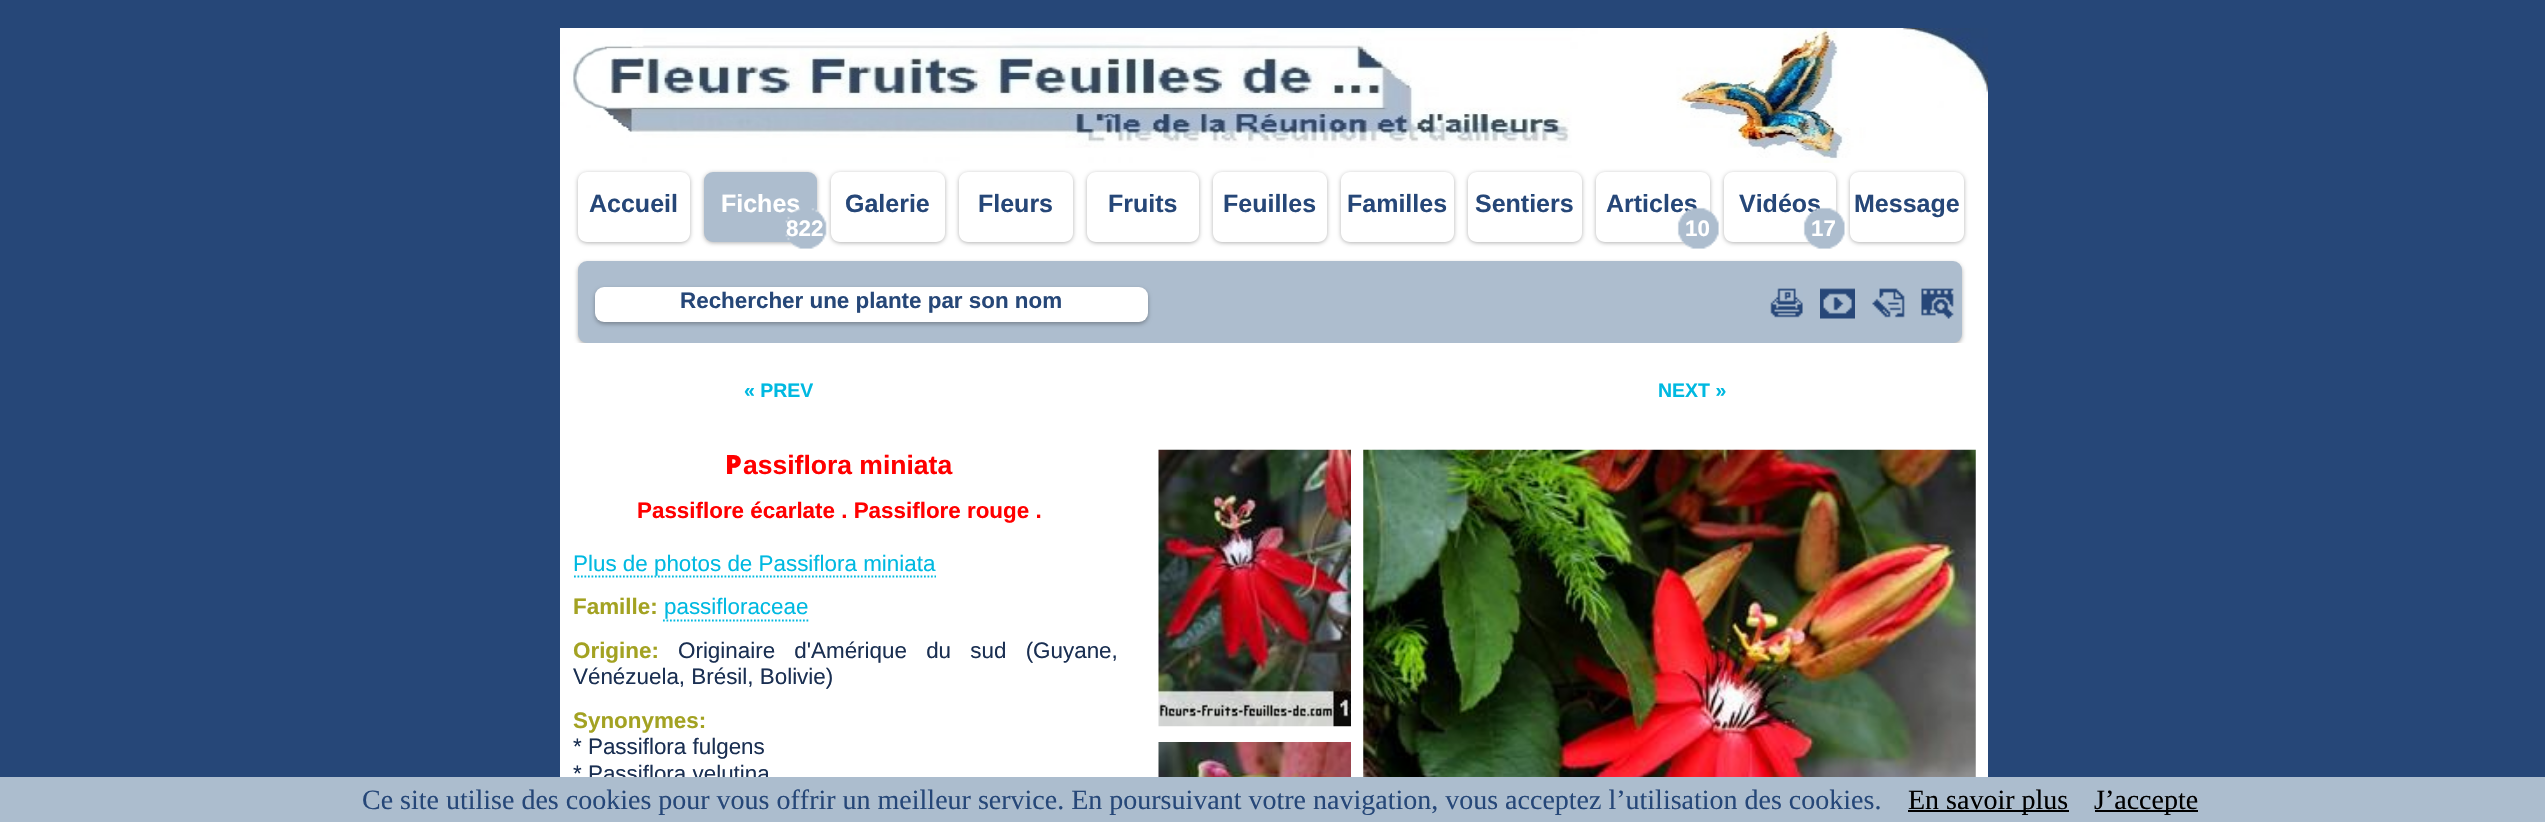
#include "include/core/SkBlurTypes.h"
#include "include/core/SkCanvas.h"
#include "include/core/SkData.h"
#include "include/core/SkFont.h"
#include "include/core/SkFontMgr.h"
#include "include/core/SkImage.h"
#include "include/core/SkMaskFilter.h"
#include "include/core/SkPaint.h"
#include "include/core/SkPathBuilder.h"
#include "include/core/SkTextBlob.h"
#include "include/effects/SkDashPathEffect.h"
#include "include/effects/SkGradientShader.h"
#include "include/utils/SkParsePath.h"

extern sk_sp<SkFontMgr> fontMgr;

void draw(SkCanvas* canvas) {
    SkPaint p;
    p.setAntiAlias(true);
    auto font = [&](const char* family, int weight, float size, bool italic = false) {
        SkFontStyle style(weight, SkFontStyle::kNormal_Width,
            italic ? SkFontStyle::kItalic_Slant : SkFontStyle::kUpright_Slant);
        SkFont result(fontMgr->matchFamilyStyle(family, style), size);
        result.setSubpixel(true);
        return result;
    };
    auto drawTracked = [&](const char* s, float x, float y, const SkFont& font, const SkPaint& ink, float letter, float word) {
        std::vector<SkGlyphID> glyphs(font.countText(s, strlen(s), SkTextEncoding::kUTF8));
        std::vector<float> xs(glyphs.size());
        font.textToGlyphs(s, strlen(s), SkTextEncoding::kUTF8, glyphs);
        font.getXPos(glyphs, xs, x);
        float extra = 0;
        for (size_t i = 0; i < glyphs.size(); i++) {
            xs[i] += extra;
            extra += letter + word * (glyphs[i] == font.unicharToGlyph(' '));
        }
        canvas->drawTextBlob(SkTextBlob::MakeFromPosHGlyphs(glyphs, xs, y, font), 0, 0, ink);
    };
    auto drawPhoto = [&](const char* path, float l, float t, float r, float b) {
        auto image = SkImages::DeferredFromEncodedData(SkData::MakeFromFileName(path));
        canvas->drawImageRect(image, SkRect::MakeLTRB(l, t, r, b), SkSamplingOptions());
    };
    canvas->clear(0xFF264778);
    p.setColor(0xFFFFFFFF);
    canvas->drawRect(SkRect::MakeLTRB(560, 162, 1988, 343), p);
    drawPhoto("media/1.png", 560, 28, 1988, 163);
    canvas->save();
    canvas->clipPath(SkPathBuilder(SkPathFillType::kEvenOdd).moveTo(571, 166).lineTo(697, 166).lineTo(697, 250).lineTo(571, 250).close().moveTo(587, 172).lineTo(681, 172).cubicTo(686, 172, 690, 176, 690, 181).lineTo(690, 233).cubicTo(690, 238, 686, 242, 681, 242).lineTo(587, 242).cubicTo(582, 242, 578, 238, 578, 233).lineTo(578, 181).cubicTo(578, 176, 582, 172, 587, 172).close().detach(), true);
    p.setColor(0x4D000000);
    p.setMaskFilter(SkMaskFilter::MakeBlur(kNormal_SkBlurStyle, 2));
    canvas->drawRoundRect(SkRect::MakeLTRB(578, 173, 690, 243), 9, 9, p);
    p.setMaskFilter(nullptr);
    canvas->restore();
    auto font1 = font("Liberation Sans", 700, 25);
    p.setColor(0xFF264778);
    canvas->drawString("Accueil", 589, 212, font1, p);
    p.setColor(0x4D000000);
    p.setMaskFilter(SkMaskFilter::MakeBlur(kNormal_SkBlurStyle, 2));
    canvas->drawRoundRect(SkRect::MakeLTRB(704, 173, 817, 243), 9, 9, p);
    p.setMaskFilter(nullptr);
    p.setColor(0xFFADBDCE);
    canvas->drawRoundRect(SkRect::MakeLTRB(704, 172, 817, 242), 9, 9, p);
    p.setColor(0xFFFFFFFF);
    canvas->drawString("Fiches", 721, 212, font1, p);
    canvas->save();
    canvas->clipPath(SkPathBuilder(SkPathFillType::kEvenOdd).moveTo(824, 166).lineTo(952, 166).lineTo(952, 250).lineTo(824, 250).close().moveTo(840, 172).lineTo(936, 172).cubicTo(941, 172, 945, 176, 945, 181).lineTo(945, 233).cubicTo(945, 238, 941, 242, 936, 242).lineTo(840, 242).cubicTo(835, 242, 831, 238, 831, 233).lineTo(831, 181).cubicTo(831, 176, 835, 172, 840, 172).close().detach(), true);
    p.setColor(0x4D000000);
    p.setMaskFilter(SkMaskFilter::MakeBlur(kNormal_SkBlurStyle, 2));
    canvas->drawRoundRect(SkRect::MakeLTRB(831, 173, 945, 243), 9, 9, p);
    p.setMaskFilter(nullptr);
    canvas->restore();
    p.setColor(0xFF264778);
    canvas->drawString("Galerie", 845, 212, font1, p);
    canvas->save();
    canvas->clipPath(SkPathBuilder(SkPathFillType::kEvenOdd).moveTo(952, 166).lineTo(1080, 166).lineTo(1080, 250).lineTo(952, 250).close().moveTo(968, 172).lineTo(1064, 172).cubicTo(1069, 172, 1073, 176, 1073, 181).lineTo(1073, 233).cubicTo(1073, 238, 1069, 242, 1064, 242).lineTo(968, 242).cubicTo(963, 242, 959, 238, 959, 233).lineTo(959, 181).cubicTo(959, 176, 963, 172, 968, 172).close().detach(), true);
    p.setColor(0x4D000000);
    p.setMaskFilter(SkMaskFilter::MakeBlur(kNormal_SkBlurStyle, 2));
    canvas->drawRoundRect(SkRect::MakeLTRB(959, 173, 1073, 243), 9, 9, p);
    p.setMaskFilter(nullptr);
    canvas->restore();
    p.setColor(0xFF264778);
    canvas->drawString("Fleurs", 978, 212, font1, p);
    canvas->save();
    canvas->clipPath(SkPathBuilder(SkPathFillType::kEvenOdd).moveTo(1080, 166).lineTo(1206, 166).lineTo(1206, 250).lineTo(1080, 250).close().moveTo(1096, 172).lineTo(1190, 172).cubicTo(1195, 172, 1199, 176, 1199, 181).lineTo(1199, 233).cubicTo(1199, 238, 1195, 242, 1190, 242).lineTo(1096, 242).cubicTo(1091, 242, 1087, 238, 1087, 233).lineTo(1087, 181).cubicTo(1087, 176, 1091, 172, 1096, 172).close().detach(), true);
    p.setColor(0x4D000000);
    p.setMaskFilter(SkMaskFilter::MakeBlur(kNormal_SkBlurStyle, 2));
    canvas->drawRoundRect(SkRect::MakeLTRB(1087, 173, 1199, 243), 9, 9, p);
    p.setMaskFilter(nullptr);
    canvas->restore();
    p.setColor(0xFF264778);
    canvas->drawString("Fruits", 1108, 212, font1, p);
    canvas->save();
    canvas->clipPath(SkPathBuilder(SkPathFillType::kEvenOdd).moveTo(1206, 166).lineTo(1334, 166).lineTo(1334, 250).lineTo(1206, 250).close().moveTo(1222, 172).lineTo(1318, 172).cubicTo(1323, 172, 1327, 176, 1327, 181).lineTo(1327, 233).cubicTo(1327, 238, 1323, 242, 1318, 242).lineTo(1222, 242).cubicTo(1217, 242, 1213, 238, 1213, 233).lineTo(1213, 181).cubicTo(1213, 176, 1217, 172, 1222, 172).close().detach(), true);
    p.setColor(0x4D000000);
    p.setMaskFilter(SkMaskFilter::MakeBlur(kNormal_SkBlurStyle, 2));
    canvas->drawRoundRect(SkRect::MakeLTRB(1213, 173, 1327, 243), 9, 9, p);
    p.setMaskFilter(nullptr);
    canvas->restore();
    p.setColor(0xFF264778);
    canvas->drawString("Feuilles", 1223, 212, font1, p);
    canvas->save();
    canvas->clipPath(SkPathBuilder(SkPathFillType::kEvenOdd).moveTo(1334, 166).lineTo(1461, 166).lineTo(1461, 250).lineTo(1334, 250).close().moveTo(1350, 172).lineTo(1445, 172).cubicTo(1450, 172, 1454, 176, 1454, 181).lineTo(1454, 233).cubicTo(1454, 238, 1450, 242, 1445, 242).lineTo(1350, 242).cubicTo(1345, 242, 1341, 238, 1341, 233).lineTo(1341, 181).cubicTo(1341, 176, 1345, 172, 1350, 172).close().detach(), true);
    p.setColor(0x4D000000);
    p.setMaskFilter(SkMaskFilter::MakeBlur(kNormal_SkBlurStyle, 2));
    canvas->drawRoundRect(SkRect::MakeLTRB(1341, 173, 1454, 243), 9, 9, p);
    p.setMaskFilter(nullptr);
    canvas->restore();
    p.setColor(0xFF264778);
    canvas->drawString("Familles", 1347, 212, font1, p);
    canvas->save();
    canvas->clipPath(SkPathBuilder(SkPathFillType::kEvenOdd).moveTo(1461, 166).lineTo(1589, 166).lineTo(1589, 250).lineTo(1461, 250).close().moveTo(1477, 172).lineTo(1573, 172).cubicTo(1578, 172, 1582, 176, 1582, 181).lineTo(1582, 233).cubicTo(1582, 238, 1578, 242, 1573, 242).lineTo(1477, 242).cubicTo(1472, 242, 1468, 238, 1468, 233).lineTo(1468, 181).cubicTo(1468, 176, 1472, 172, 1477, 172).close().detach(), true);
    p.setColor(0x4D000000);
    p.setMaskFilter(SkMaskFilter::MakeBlur(kNormal_SkBlurStyle, 2));
    canvas->drawRoundRect(SkRect::MakeLTRB(1468, 173, 1582, 243), 9, 9, p);
    p.setMaskFilter(nullptr);
    canvas->restore();
    p.setColor(0xFF264778);
    canvas->drawString("Sentiers", 1475, 212, font1, p);
    canvas->save();
    canvas->clipPath(SkPathBuilder(SkPathFillType::kEvenOdd).moveTo(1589, 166).lineTo(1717, 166).lineTo(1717, 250).lineTo(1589, 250).close().moveTo(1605, 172).lineTo(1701, 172).cubicTo(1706, 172, 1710, 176, 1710, 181).lineTo(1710, 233).cubicTo(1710, 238, 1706, 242, 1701, 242).lineTo(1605, 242).cubicTo(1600, 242, 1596, 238, 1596, 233).lineTo(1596, 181).cubicTo(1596, 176, 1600, 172, 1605, 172).close().detach(), true);
    p.setColor(0x4D000000);
    p.setMaskFilter(SkMaskFilter::MakeBlur(kNormal_SkBlurStyle, 2));
    canvas->drawRoundRect(SkRect::MakeLTRB(1596, 173, 1710, 243), 9, 9, p);
    p.setMaskFilter(nullptr);
    canvas->restore();
    p.setColor(0xFF264778);
    canvas->drawString("Articles", 1606, 212, font1, p);
    canvas->save();
    canvas->clipPath(SkPathBuilder(SkPathFillType::kEvenOdd).moveTo(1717, 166).lineTo(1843, 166).lineTo(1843, 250).lineTo(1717, 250).close().moveTo(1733, 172).lineTo(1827, 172).cubicTo(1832, 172, 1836, 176, 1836, 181).lineTo(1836, 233).cubicTo(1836, 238, 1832, 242, 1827, 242).lineTo(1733, 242).cubicTo(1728, 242, 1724, 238, 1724, 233).lineTo(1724, 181).cubicTo(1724, 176, 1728, 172, 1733, 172).close().detach(), true);
    p.setColor(0x4D000000);
    p.setMaskFilter(SkMaskFilter::MakeBlur(kNormal_SkBlurStyle, 2));
    canvas->drawRoundRect(SkRect::MakeLTRB(1724, 173, 1836, 243), 9, 9, p);
    p.setMaskFilter(nullptr);
    canvas->restore();
    p.setColor(0xFF264778);
    canvas->drawString("Vidéos", 1739, 212, font1, p);
    canvas->save();
    canvas->clipPath(SkPathBuilder(SkPathFillType::kEvenOdd).moveTo(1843, 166).lineTo(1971, 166).lineTo(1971, 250).lineTo(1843, 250).close().moveTo(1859, 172).lineTo(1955, 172).cubicTo(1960, 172, 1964, 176, 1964, 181).lineTo(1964, 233).cubicTo(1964, 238, 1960, 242, 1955, 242).lineTo(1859, 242).cubicTo(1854, 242, 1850, 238, 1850, 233).lineTo(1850, 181).cubicTo(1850, 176, 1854, 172, 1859, 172).close().detach(), true);
    p.setColor(0x4D000000);
    p.setMaskFilter(SkMaskFilter::MakeBlur(kNormal_SkBlurStyle, 2));
    canvas->drawRoundRect(SkRect::MakeLTRB(1850, 173, 1964, 243), 9, 9, p);
    p.setMaskFilter(nullptr);
    canvas->restore();
    p.setColor(0xFF264778);
    canvas->drawString("Message", 1854, 212, font1, p);
    drawPhoto("media/2.png", 785, 208, 827, 249);
    auto font2 = font("Liberation Sans", 700, 22.4f);
    p.setColor(0xFFFFFFFF);
    canvas->drawString("822", 786, 236, font2, p);
    drawPhoto("media/3.png", 1677, 207, 1719, 249);
    canvas->drawString("10", 1685, 236, font2, p);
    drawPhoto("media/4.png", 1803, 207, 1845, 249);
    canvas->drawString("17", 1811, 236, font2, p);
    p.setColor(0x4D000000);
    p.setMaskFilter(SkMaskFilter::MakeBlur(kNormal_SkBlurStyle, 2));
    canvas->drawRoundRect(SkRect::MakeLTRB(578, 263, 1962, 345), 9, 9, p);
    p.setMaskFilter(nullptr);
    p.setColor(0xFFADBDCE);
    canvas->drawRoundRect(SkRect::MakeLTRB(578, 261, 1962, 343), 9, 9, p);
    p.setColor(0x4D000000);
    p.setMaskFilter(SkMaskFilter::MakeBlur(kNormal_SkBlurStyle, 2));
    canvas->drawRoundRect(SkRect::MakeLTRB(595, 289, 1148, 324), 9, 9, p);
    p.setMaskFilter(nullptr);
    p.setColor(0xFFFFFFFF);
    canvas->drawRoundRect(SkRect::MakeLTRB(595, 287, 1148, 322), 9, 9, p);
    p.setColor(0xFF264778);
    canvas->drawString("Rechercher une plante par son nom", 680, 308, font2, p);
    drawPhoto("media/5.png", 1770, 288, 1803, 318);
    drawPhoto("media/6.png", 1820, 288, 1855, 319);
    drawPhoto("media/7.png", 1872, 288, 1905, 318);
    drawPhoto("media/8.png", 1921, 288, 1954, 319);
    p.setColor(0xFFFFFFFF);
    canvas->drawRect(SkRect::MakeLTRB(560, 343, 1988, 777), p);
    auto font3 = font("Liberation Sans", 700, 19.5f);
    p.setColor(0xFF00B9E1);
    canvas->drawString("« PREV", 744, 397, font3, p);
    canvas->drawString("NEXT »", 1658, 397, font3, p);
    auto font4 = font("Noto Sans", 900, 26.5f);
    p.setColor(0xFFFF0000);
    canvas->drawString("P", 725, 474, font4, p);
    auto font5 = font("Liberation Sans", 700, 26.5f);
    canvas->drawString("assiflora miniata", 743, 474, font5, p);
    drawPhoto("media/9.png", 1158, 449, 1351, 727);
    drawPhoto("media/10.png", 1363, 449, 1976, 777);
    drawPhoto("media/11.png", 1158, 742, 1351, 777);
    canvas->drawString("Passiflore écarlate . Passiflore rouge .", 637, 518, font2, p);
    p.setStyle(SkPaint::kStroke_Style);
    p.setStrokeWidth(1.8f);
    p.setColor(0xFF00B9E1);
    p.setPathEffect(SkDashPathEffect::Make({{1.75f, 1.75f}}, 0));
    canvas->drawPath(SkPathBuilder().moveTo(574, 576.5f).lineTo(936, 576.5f).detach(), p);
    p.setPathEffect(nullptr);
    auto font6 = font("Liberation Sans", 400, 22.4f);
    p.setStyle(SkPaint::kFill_Style);
    canvas->drawString("Plus de photos de Passiflora miniata", 573, 571, font6, p);
    p.setColor(0xFFA3A222);
    canvas->drawString("Famille:", 573, 614, font2, p);
    p.setColor(0xFF00B9E1);
    canvas->drawString("passifloraceae", 664, 614, font6, p);
    p.setStyle(SkPaint::kStroke_Style);
    p.setPathEffect(SkDashPathEffect::Make({{1.75f, 1.75f}}, 0));
    canvas->drawPath(SkPathBuilder().moveTo(663, 620.5f).lineTo(808.5f, 620.5f).detach(), p);
    p.setPathEffect(nullptr);
    p.setStyle(SkPaint::kFill_Style);
    p.setColor(0xFFA3A222);
    canvas->drawString("Origine:", 573, 658, font2, p);
    p.setColor(0xFF1A2F52);
    drawTracked("Originaire d'Amérique du sud (Guyane,", 678, 658, font6, p, 0, 13);
    canvas->drawString("Vénézuela, Brésil, Bolivie)", 573, 684, font6, p);
    p.setColor(0xFFA3A222);
    canvas->drawString("Synonymes:", 573, 728, font2, p);
    p.setColor(0xFF1A2F52);
    canvas->drawString("* Passiflora fulgens", 573, 754, font6, p);
    canvas->drawString("* Passiflora velutina", 573, 781, font6, p);
    p.setColor(0xFFACBDCE);
    canvas->drawRect(SkRect::MakeLTRB(0, 777, 2545, 822), p);
    auto font7 = font("Liberation Serif", 400, 28);
    p.setColor(0xFF264778);
    canvas->drawString("Ce site utilise des cookies pour vous offrir un meilleur service. En poursuivant votre navigation, vous acceptez l’utilisation des cookies.", 362, 809, font7, p);
    p.setColor(0xFF000000);
    canvas->drawRect(SkRect::MakeLTRB(1908, 810, 2069, 812), p);
    canvas->drawString("En savoir plus", 1908, 809, font7, p);
    canvas->drawRect(SkRect::MakeLTRB(2095, 810, 2198, 812), p);
    canvas->drawString("J’accepte", 2094, 809, font7, p);
}
